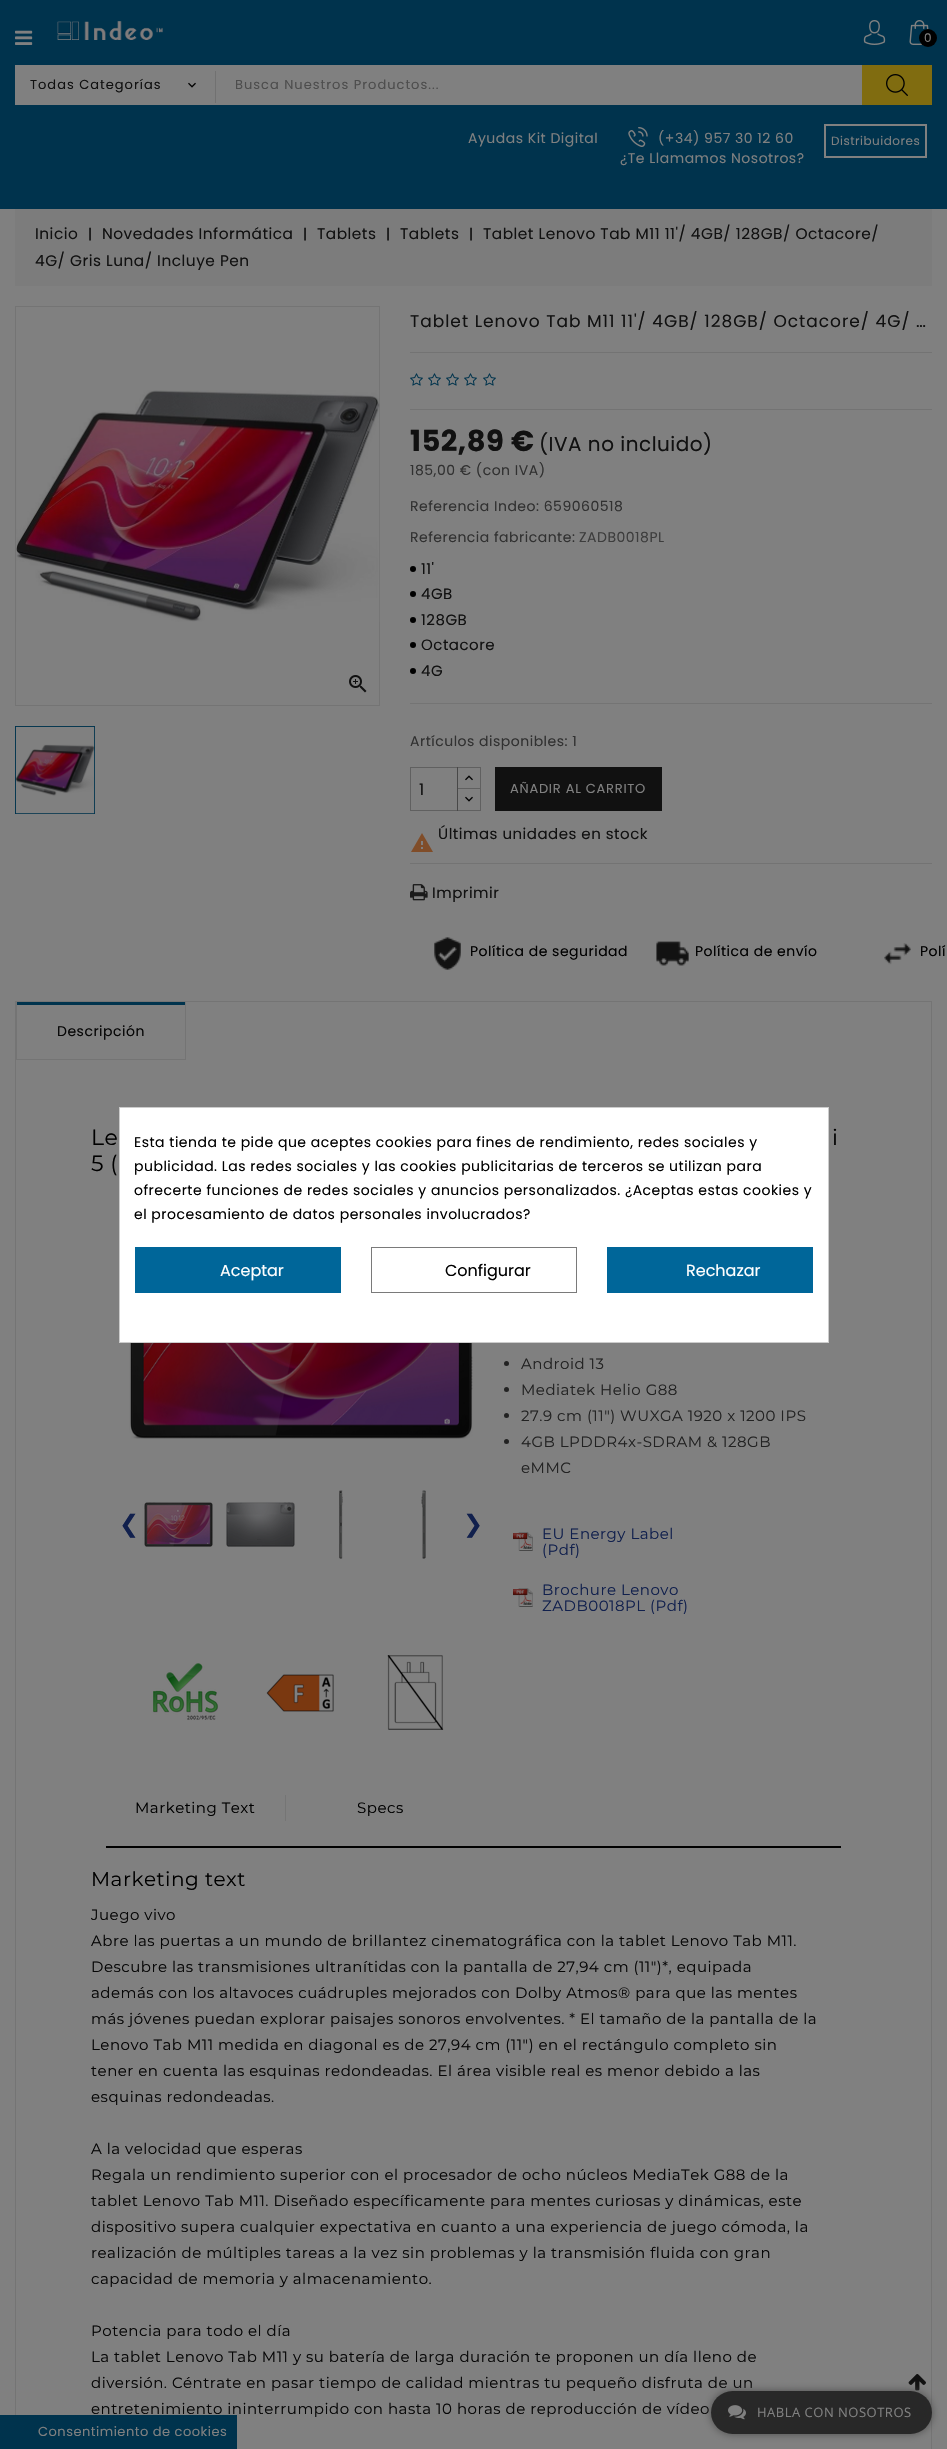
#include "include/core/SkBlurTypes.h"
#include "include/core/SkCanvas.h"
#include "include/core/SkData.h"
#include "include/core/SkFont.h"
#include "include/core/SkFontMgr.h"
#include "include/core/SkImage.h"
#include "include/core/SkMaskFilter.h"
#include "include/core/SkPaint.h"
#include "include/core/SkPathBuilder.h"
#include "include/core/SkTextBlob.h"
#include "include/effects/SkDashPathEffect.h"
#include "include/effects/SkGradientShader.h"
#include "include/utils/SkParsePath.h"

extern sk_sp<SkFontMgr> fontMgr;

void draw(SkCanvas* canvas) {
    SkPaint p;
    p.setAntiAlias(true);
    auto font = [&](const char* family, int weight, float size, bool italic = false) {
        SkFontStyle style(weight, SkFontStyle::kNormal_Width,
            italic ? SkFontStyle::kItalic_Slant : SkFontStyle::kUpright_Slant);
        SkFont result(fontMgr->matchFamilyStyle(family, style), size);
        result.setSubpixel(true);
        return result;
    };
    auto drawTracked = [&](const char* s, float x, float y, const SkFont& font, const SkPaint& ink, float letter, float word) {
        std::vector<SkGlyphID> glyphs(font.countText(s, strlen(s), SkTextEncoding::kUTF8));
        std::vector<float> xs(glyphs.size());
        font.textToGlyphs(s, strlen(s), SkTextEncoding::kUTF8, glyphs);
        font.getXPos(glyphs, xs, x);
        float extra = 0;
        for (size_t i = 0; i < glyphs.size(); i++) {
            xs[i] += extra;
            extra += letter + word * (glyphs[i] == font.unicharToGlyph(' '));
        }
        canvas->drawTextBlob(SkTextBlob::MakeFromPosHGlyphs(glyphs, xs, y, font), 0, 0, ink);
    };
    auto drawPhoto = [&](const char* path, float l, float t, float r, float b) {
        auto image = SkImages::DeferredFromEncodedData(SkData::MakeFromFileName(path));
        canvas->drawImageRect(image, SkRect::MakeLTRB(l, t, r, b), SkSamplingOptions());
    };
    canvas->clear(0xFF808080);
    p.setColor(0xFF00334D);
    canvas->drawRect(SkRect::MakeLTRB(0, 0, 947, 209), p);
    drawPhoto("media/1.png", 15, 30, 33, 45);
    drawPhoto("media/2.png", 57, 21, 163, 40);
    drawPhoto("media/3.png", 863, 20, 886, 45);
    drawPhoto("media/4.png", 909, 20, 929, 45);
    p.setColor(0xFF000000);
    canvas->drawCircle(928, 38, 9, p);
    auto font1 = font("Poppins", 400, 12);
    p.setColor(0xFF808080);
    drawTracked("0", 924, 42, font1, p, 0.5f, 0);
    canvas->drawRect(SkRect::MakeLTRB(15, 65, 862, 105), p);
    drawPhoto("media/5.png", 188, 82, 196, 88);
    auto font2 = font("Poppins", 400, 13);
    p.setColor(0xFF111111);
    drawTracked("Todas Categorías", 30, 89, font2, p, 1, 0);
    p.setColor(0xFF717171);
    canvas->drawRect(SkRect::MakeLTRB(215, 71, 216, 103), p);
    p.setColor(0xFF4D4D4D);
    drawTracked("Busca Nuestros Productos...", 235, 89, font2, p, 1, 0);
    p.setColor(0xFF806C10);
    canvas->drawRect(SkRect::MakeLTRB(862, 65, 932, 105), p);
    drawPhoto("media/6.png", 886, 74, 908, 96);
    auto font3 = font("Poppins", 400, 14);
    p.setColor(0xFF808080);
    drawTracked("Ayudas Kit Digital", 468, 143, font3, p, 0.5f, 0);
    drawPhoto("media/7.png", 628, 127, 648, 147);
    drawTracked("(+34) 957 30 12 60", 658, 143, font3, p, 0.5f, 0);
    drawTracked("¿Te Llamamos Nosotros?", 620, 163, font3, p, 0.5f, 0);
    p.setStyle(SkPaint::kStroke_Style);
    p.setStrokeWidth(2);
    canvas->drawRect(SkRect::MakeLTRB(825, 125, 926, 157), p);
    p.setStyle(SkPaint::kFill_Style);
    drawTracked("Distribuidores", 831, 145, font1, p, 0.5f, 0);
    p.setColor(0xFF7C7C7C);
    canvas->drawRect(SkRect::MakeLTRB(15, 209, 932, 286), p);
    auto font4 = font("Poppins", 400, 15.35f);
    p.setColor(0xFF111111);
    drawTracked("Inicio", 35, 239, font4, p, 0.5f, 0);
    p.setColor(0xFF000000);
    drawTracked("|", 88, 239, font3, p, 0.5f, 0);
    p.setColor(0xFF111111);
    drawTracked("Novedades Informática", 102, 239, font4, p, 0.5f, 0);
    p.setColor(0xFF000000);
    drawTracked("|", 303, 239, font3, p, 0.5f, 0);
    p.setColor(0xFF111111);
    drawTracked("Tablets", 317, 239, font4, p, 0.5f, 0);
    p.setColor(0xFF000000);
    drawTracked("|", 386, 239, font3, p, 0.5f, 0);
    p.setColor(0xFF111111);
    drawTracked("Tablets", 400, 239, font4, p, 0.5f, 0);
    p.setColor(0xFF000000);
    drawTracked("|", 469, 239, font3, p, 0.5f, 0);
    p.setColor(0xFF111111);
    drawTracked("Tablet Lenovo Tab M11 11'/ 4GB/ 128GB/ Octacore/", 483, 239, font4, p, 0.5f, 0);
    drawTracked("4G/ Gris Luna/ Incluye Pen", 35, 266, font4, p, 0.5f, 0);
    p.setStyle(SkPaint::kStroke_Style);
    p.setStrokeWidth(1);
    p.setColor(0xFF747474);
    canvas->drawRect(SkRect::MakeLTRB(15.5f, 306.5f, 379.5f, 705.5f), p);
    drawPhoto("media/8.png", 16, 390, 380, 622);
    drawPhoto("media/9.png", 349, 675, 367, 693);
    p.setColor(0xFF00334D);
    canvas->drawRect(SkRect::MakeLTRB(15.5f, 726.5f, 94.5f, 813.5f), p);
    drawPhoto("media/10.png", 15, 726, 95, 814);
    auto font5 = font("Poppins", 400, 17);
    p.setStyle(SkPaint::kFill_Style);
    p.setColor(0xFF111111);
    drawTracked("Tablet Lenovo Tab M11 11'/ 4GB/ 128GB/ Octacore/ 4G/ …", 410, 327, font5, p, 1, 0);
    p.setColor(0xFF737373);
    canvas->drawRect(SkRect::MakeLTRB(410, 352, 932, 353), p);
    drawPhoto("media/11.png", 410, 373, 423, 386);
    drawPhoto("media/11.png", 428, 373, 441, 386);
    drawPhoto("media/11.png", 446, 373, 459, 386);
    drawPhoto("media/11.png", 464, 373, 477, 386);
    drawPhoto("media/11.png", 483, 373, 496, 386);
    canvas->drawRect(SkRect::MakeLTRB(410, 409, 932, 410), p);
    auto font6 = font("Poppins", 700, 29);
    p.setColor(0xFF111111);
    drawTracked("152,89 €", 410, 451, font6, p, 0.5f, 0);
    auto font7 = font("Poppins", 400, 20);
    drawTracked("(IVA no incluido)", 539, 451, font7, p, 0.5f, 0);
    p.setColor(0xFF313131);
    drawTracked("185,00 € (con IVA)", 410, 475, font3, p, 0.5f, 0);
    drawTracked("Referencia Indeo: 659060518", 410, 511, font3, p, 0.5f, 0);
    p.setColor(0xFF747474);
    canvas->drawRect(SkRect::MakeLTRB(410, 703, 932, 704), p);
    p.setColor(0xFF313131);
    drawTracked("Referencia fabricante:", 410, 542, font3, p, 0.5f, 0);
    p.setColor(0xFF3D3D3D);
    drawTracked("ZADB0018PL", 579, 542, font3, p, 0.5f, 0);
    p.setColor(0xFF000000);
    canvas->drawCircle(413, 569, 3, p);
    auto font8 = font("Poppins", 400, 15);
    p.setColor(0xFF111111);
    drawTracked("11'", 421, 574, font8, p, 0.5f, 0);
    p.setColor(0xFF000000);
    canvas->drawCircle(413, 594, 3, p);
    p.setColor(0xFF111111);
    drawTracked("4GB", 421, 599, font8, p, 0.5f, 0);
    p.setColor(0xFF000000);
    canvas->drawCircle(413, 620, 3, p);
    p.setColor(0xFF111111);
    drawTracked("128GB", 421, 625, font8, p, 0.5f, 0);
    p.setColor(0xFF000000);
    canvas->drawCircle(413, 645, 3, p);
    p.setColor(0xFF111111);
    drawTracked("Octacore", 421, 650, font8, p, 0.5f, 0);
    p.setColor(0xFF000000);
    canvas->drawCircle(413, 671, 3, p);
    p.setColor(0xFF111111);
    drawTracked("4G", 421, 676, font8, p, 0.5f, 0);
    p.setColor(0xFF313131);
    drawTracked("Artículos disponibles: 1", 410, 746, font3, p, 0.5f, 0);
    p.setStyle(SkPaint::kStroke_Style);
    p.setColor(0xFF606060);
    canvas->drawRect(SkRect::MakeLTRB(457.5f, 767.5f, 480.5f, 789.5f), p);
    p.setStyle(SkPaint::kFill_Style);
    p.setColor(0xFF808080);
    canvas->drawRect(SkRect::MakeLTRB(458, 789, 480, 790), p);
    p.setStyle(SkPaint::kStroke_Style);
    p.setColor(0xFF606060);
    canvas->drawRect(SkRect::MakeLTRB(457.5f, 788.5f, 480.5f, 810.5f), p);
    p.setColor(0x40000000);
    canvas->drawRect(SkRect::MakeLTRB(410.5f, 767.5f, 457.5f, 810.5f), p);
    auto font9 = font("Poppins", 400, 16);
    p.setStyle(SkPaint::kFill_Style);
    p.setColor(0xFF111111);
    canvas->drawString("1", 419, 795, font9, p);
    drawPhoto("media/12.png", 465, 775, 473, 781);
    drawPhoto("media/13.png", 465, 796, 473, 802);
    canvas->drawRect(SkRect::MakeLTRB(495, 767, 662, 811), p);
    p.setColor(0xFF808080);
    drawTracked("AÑADIR AL CARRITO", 510, 793, font2, p, 0.75f, 0);
    drawPhoto("media/14.png", 411, 833, 433, 852);
    p.setColor(0xFF111111);
    drawTracked("Últimas unidades en stock", 438, 839, font8, p, 0.5f, 0);
    p.setColor(0xFF737373);
    canvas->drawRect(SkRect::MakeLTRB(410, 863, 932, 864), p);
    drawPhoto("media/15.png", 410, 884, 428, 901);
    p.setColor(0xFF111111);
    drawTracked("Imprimir", 432, 898, font8, p, 0.5f, 0);
    drawPhoto("media/16.png", 434, 937, 461, 970);
    p.setColor(0xFF000000);
    drawTracked("Política de seguridad", 470, 956, font3, p, 0.5f, 0);
    drawPhoto("media/17.png", 656, 941, 689, 966);
    drawTracked("Política de envío", 695, 956, font3, p, 0.5f, 0);
    drawPhoto("media/18.png", 884, 943, 911, 965);
    drawTracked("Polí", 920, 956, font3, p, 0.5f, 0);
    p.setStyle(SkPaint::kStroke_Style);
    p.setColor(0xFF747474);
    canvas->drawRect(SkRect::MakeLTRB(15.5f, 1001.5f, 931.5f, 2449.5f), p);
    p.setStyle(SkPaint::kFill_Style);
    {
        const struct { float l, t, r, b; SkColor color; } items[] = {
            {185, 1002, 186, 1060, 0xFF747474},
            {16, 1059, 186, 1060, 0xFF747474},
            {16, 1002, 17, 1060, 0xFF747474},
            {17, 1002, 185, 1005, 0xFF00334D},
        };
        for (auto [l, t, r, b, color] : items) {
            p.setColor(color);
            canvas->drawRect(SkRect::MakeLTRB(l, t, r, b), p);
        }
    }
    p.setColor(0xFF060606);
    drawTracked("Descripción", 57, 1036, font3, p, 0.5f, 0);
    auto font10 = font("Montserrat", 400, 22);
    p.setColor(0xFF000000);
    {
        const struct { const char* s; float x, y; } items[] = {
            {"Le", 91, 1145},
            {"i", 832, 1145},
            {"5 (", 91, 1171},
        };
        for (auto [s, x, y] : items) {
            drawTracked(s, x, y, font10, p, 0.5f, 0);
        }
    }
    drawPhoto("media/19.png", 129, 1343, 473, 1439);
    auto font11 = font("DejaVu Sans", 400, 24);
    p.setColor(0xFF11204D);
    canvas->drawString("❮", 119, 1532, font11, p);
    drawPhoto("media/20.png", 142, 1502, 213, 1547);
    drawPhoto("media/21.png", 226, 1502, 295, 1547);
    drawPhoto("media/22.png", 339, 1490, 343, 1559);
    drawPhoto("media/23.png", 421, 1490, 426, 1559);
    canvas->drawString("❯", 463, 1532, font11, p);
    p.setColor(0xFF222222);
    canvas->drawCircle(506.5f, 1363.5f, 2.5f, p);
    auto font12 = font("Montserrat", 400, 15);
    drawTracked("Android 13", 521, 1369, font12, p, 0.5f, 0);
    canvas->drawCircle(506.5f, 1389.5f, 2.5f, p);
    drawTracked("Mediatek Helio G88", 521, 1395, font12, p, 0.5f, 0);
    canvas->drawCircle(506.5f, 1415.5f, 2.5f, p);
    drawTracked("27.9 cm (11\") WUXGA 1920 x 1200 IPS", 521, 1421, font12, p, 0.5f, 0);
    canvas->drawCircle(506.5f, 1441.5f, 2.5f, p);
    drawTracked("4GB LPDDR4x-SDRAM & 128GB", 521, 1447, font12, p, 0.5f, 0);
    drawTracked("eMMC", 521, 1473, font12, p, 0.5f, 0);
    drawPhoto("media/24.png", 513, 1532, 533, 1551);
    p.setColor(0xFF11204D);
    drawTracked("EU Energy Label", 542, 1539, font12, p, 0.5f, 0);
    drawTracked("(Pdf)", 542, 1555, font12, p, 0.5f, 0);
    drawPhoto("media/25.png", 513, 1588, 533, 1607);
    drawTracked("Brochure Lenovo", 542, 1595, font12, p, 0.5f, 0);
    drawTracked("ZADB0018PL (Pdf)", 542, 1611, font12, p, 0.5f, 0);
    drawPhoto("media/26.png", 153, 1663, 219, 1720);
    drawPhoto("media/27.png", 266, 1674, 334, 1712);
    drawPhoto("media/28.png", 387, 1655, 444, 1730);
    p.setColor(0xFF000000);
    canvas->drawRect(SkRect::MakeLTRB(106, 1846, 841, 1848), p);
    p.setColor(0xFF757575);
    canvas->drawRect(SkRect::MakeLTRB(285, 1795, 286, 1821), p);
    p.setColor(0xFF000000);
    drawTracked("Marketing Text", 135, 1813, font12, p, 0.5f, 0);
    drawTracked("Specs", 357, 1813, font12, p, 0.5f, 0);
    auto font13 = font("Montserrat", 400, 20);
    drawTracked("Marketing text", 91, 1886, font13, p, 0.5f, 0);
    p.setColor(0xFF060606);
    {
        const struct { const char* s; float x, y; } items[] = {
            {"Juego vivo", 91, 1920},
            {"Abre las puertas a un mundo de brillantez cinematográfica con la tablet Lenovo Tab M11.", 91, 1946},
            {"Descubre las transmisiones ultranítidas con la pantalla de 27,94 cm (11\")*, equipada", 91, 1972},
            {"además con los altavoces cuádruples mejorados con Dolby Atmos® para que las mentes", 91, 1998},
            {"más jóvenes puedan explorar paisajes sonoros envolventes. * El tamaño de la pantalla de la", 91, 2024},
            {"Lenovo Tab M11 medida en diagonal es de 27,94 cm (11\") en el rectángulo completo sin", 91, 2050},
            {"tener en cuenta las esquinas redondeadas. El área visible real es menor debido a las", 91, 2076},
            {"esquinas redondeadas.", 91, 2102},
            {"A la velocidad que esperas", 91, 2154},
            {"Regala un rendimiento superior con el procesador de ocho núcleos MediaTek G88 de la", 91, 2180},
            {"tablet Lenovo Tab M11. Diseñado específicamente para mentes curiosas y dinámicas, este", 91, 2206},
            {"dispositivo supera cualquier expectativa en cuanto a una experiencia de juego cómoda, la", 91, 2232},
            {"realización de múltiples tareas a la vez sin problemas y la transmisión fluida con gran", 91, 2258},
            {"capacidad de memoria y almacenamiento.", 91, 2284},
            {"Potencia para todo el día", 91, 2336},
            {"La tablet Lenovo Tab M11 y su batería de larga duración te proponen un día lleno de", 91, 2362},
            {"diversión. Céntrate en pasar tiempo de calidad mientras tu pequeño disfruta de un", 91, 2388},
            {"entretenimiento ininterrumpido con hasta 10 horas de reproducción de vídeo", 91, 2414},
        };
        for (auto [s, x, y] : items) {
            drawTracked(s, x, y, font12, p, 0.5f, 0);
        }
    }
    drawPhoto("media/29.png", 908, 2374, 926, 2391);
    p.setColor(0xFFFFFFFF);
    canvas->drawRect(SkRect::MakeLTRB(119.5f, 1107.5f, 828.5f, 1342.5f), p);
    p.setStyle(SkPaint::kStroke_Style);
    p.setColor(0xFFCCCCCC);
    canvas->drawRect(SkRect::MakeLTRB(119.5f, 1107.5f, 828.5f, 1342.5f), p);
    p.setStyle(SkPaint::kFill_Style);
    p.setColor(0xFF000000);
    {
        const struct { const char* s; float x, y; } items[] = {
            {"Esta tienda te pide que aceptes cookies para fines de rendimiento, redes sociales y", 134, 1147},
            {"publicidad. Las redes sociales y las cookies publicitarias de terceros se utilizan para", 134, 1171},
            {"ofrecerte funciones de redes sociales y anuncios personalizados. ¿Aceptas estas cookies y", 134, 1195},
            {"el procesamiento de datos personales involucrados?", 134, 1219},
        };
        for (auto [s, x, y] : items) {
            drawTracked(s, x, y, font3, p, 0.5f, 0);
        }
    }
    p.setColor(0xFF006699);
    canvas->drawRect(SkRect::MakeLTRB(135, 1247, 341, 1293), p);
    p.setColor(0xFFFFFFFF);
    canvas->drawString("Aceptar", 220, 1276, font9, p);
    p.setStyle(SkPaint::kStroke_Style);
    p.setColor(0xFF7A7A7A);
    canvas->drawRect(SkRect::MakeLTRB(371.5f, 1247.5f, 576.5f, 1292.5f), p);
    p.setStyle(SkPaint::kFill_Style);
    p.setColor(0xFF000000);
    canvas->drawString("Configurar", 445, 1276, font9, p);
    p.setColor(0xFF006699);
    canvas->drawRect(SkRect::MakeLTRB(607, 1247, 813, 1293), p);
    p.setColor(0xFFFFFFFF);
    canvas->drawString("Rechazar", 686, 1276, font9, p);
    p.setColor(0xFF4D4D4D);
    p.setMaskFilter(SkMaskFilter::MakeBlur(kNormal_SkBlurStyle, 4.5f));
    canvas->drawRoundRect(SkRect::MakeLTRB(711, 2391, 932, 2434), 21.5f, 21.5f, p);
    p.setMaskFilter(nullptr);
    p.setColor(0xFF282828);
    canvas->drawRoundRect(SkRect::MakeLTRB(711, 2391, 932, 2434), 21.5f, 21.5f, p);
    drawPhoto("media/30.png", 728, 2405, 746, 2420);
    auto font14 = font("Open Sans", 400, 13);
    p.setColor(0xFF808080);
    drawTracked("HABLA CON NOSOTROS", 757, 2417, font14, p, 0.5f, 0);
    p.setColor(0xFF00334D);
    canvas->drawRect(SkRect::MakeLTRB(0, 2415, 237, 2449), p);
    p.setColor(0xFF808080);
    drawTracked("Consentimiento de cookies", 38, 2436, font2, p, 0.5f, 0);
}
